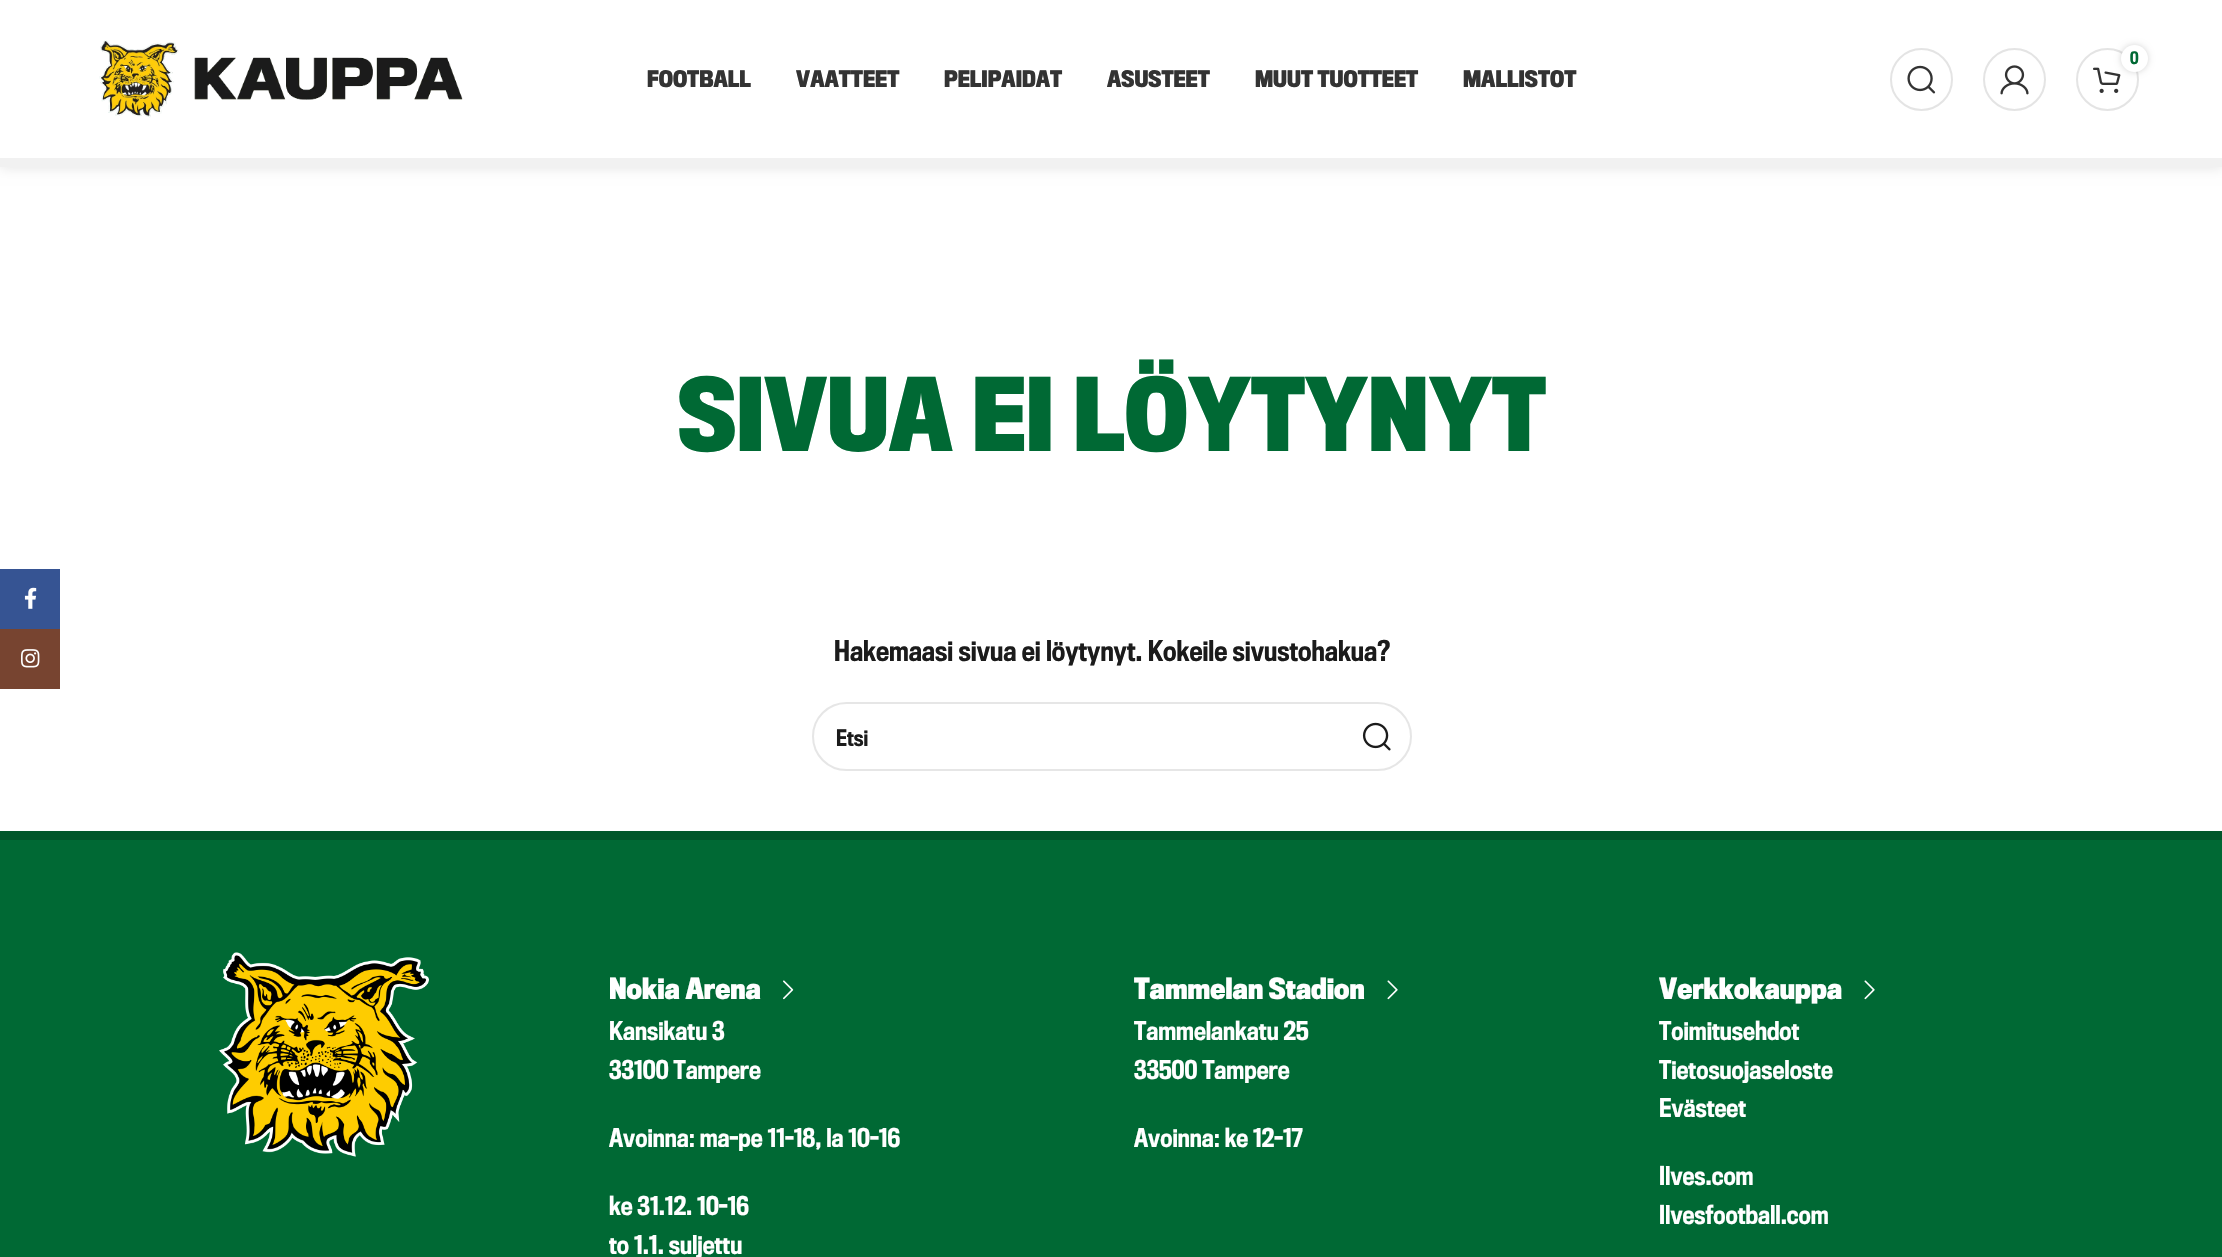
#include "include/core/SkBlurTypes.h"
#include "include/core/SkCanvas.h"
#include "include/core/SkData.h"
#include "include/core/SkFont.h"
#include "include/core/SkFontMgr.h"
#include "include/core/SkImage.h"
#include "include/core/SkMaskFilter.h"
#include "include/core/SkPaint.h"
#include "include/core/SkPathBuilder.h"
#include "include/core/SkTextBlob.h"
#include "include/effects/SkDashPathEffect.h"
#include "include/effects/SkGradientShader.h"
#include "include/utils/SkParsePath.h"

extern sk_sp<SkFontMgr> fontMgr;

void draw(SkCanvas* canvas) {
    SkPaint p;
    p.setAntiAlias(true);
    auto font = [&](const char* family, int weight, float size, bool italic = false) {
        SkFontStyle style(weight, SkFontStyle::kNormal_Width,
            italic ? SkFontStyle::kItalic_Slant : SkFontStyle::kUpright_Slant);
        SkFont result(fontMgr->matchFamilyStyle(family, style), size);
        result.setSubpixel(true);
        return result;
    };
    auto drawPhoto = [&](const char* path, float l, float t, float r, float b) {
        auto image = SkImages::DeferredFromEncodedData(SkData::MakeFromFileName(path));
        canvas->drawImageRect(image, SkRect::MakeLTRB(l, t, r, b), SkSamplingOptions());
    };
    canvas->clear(0xFFFFFFFF);
    p.setColor(0xFF365493);
    canvas->drawRect(SkRect::MakeLTRB(0, 569, 60, 629), p);
    drawPhoto("media/1.png", 24, 587, 37, 609);
    p.setColor(0xFF774430);
    canvas->drawRect(SkRect::MakeLTRB(0, 629, 60, 689), p);
    drawPhoto("media/2.png", 21, 649, 40, 668);
    p.setColor(0x1A000000);
    p.setMaskFilter(SkMaskFilter::MakeBlur(kNormal_SkBlurStyle, 6));
    canvas->drawRect(SkRect::MakeLTRB(0, 2, 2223, 168), p);
    p.setMaskFilter(nullptr);
    p.setColor(0xFFFFFFFF);
    canvas->drawRect(SkRect::MakeLTRB(0, 0, 2222, 158), p);
    p.setColor(0xFFF1F1F1);
    canvas->drawRect(SkRect::MakeLTRB(0, 158, 2222, 167), p);
    drawPhoto("media/3.png", 99, 40, 463, 118);
    p.setStyle(SkPaint::kStroke_Style);
    p.setStrokeWidth(2);
    p.setColor(0xFFE4E4E4);
    canvas->drawCircle(1921.5f, 79.5f, 30.5f, p);
    drawPhoto("media/4.png", 1907, 65, 1936, 94);
    canvas->drawCircle(2014.5f, 79.5f, 30.5f, p);
    drawPhoto("media/5.png", 2000, 65, 2029, 95);
    canvas->drawCircle(2107.5f, 79.5f, 30.5f, p);
    drawPhoto("media/6.png", 2093, 67, 2121, 93);
    p.setStyle(SkPaint::kFill_Style);
    p.setColor(0x2B000000);
    p.setMaskFilter(SkMaskFilter::MakeBlur(kNormal_SkBlurStyle, 3));
    canvas->drawRoundRect(SkRect::MakeLTRB(2121, 45, 2148, 72), 13.5f, 13.5f, p);
    p.setMaskFilter(nullptr);
    p.setColor(0xFFFFFFFF);
    canvas->drawCircle(2134.5f, 58.5f, 13.5f, p);
    auto font1 = font("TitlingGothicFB", 500, 16);
    p.setColor(0xFF006934);
    canvas->drawString("0", 2130, 64, font1, p);
    auto font2 = font("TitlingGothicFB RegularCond", 700, 21);
    p.setColor(0xFF333333);
    {
        const struct { const char* s; float x, y; } items[] = {
            {"FOOTBALL", 647, 87},
            {"VAATTEET", 796, 87},
            {"PELIPAIDAT", 944, 87},
            {"ASUSTEET", 1107, 87},
            {"MUUT TUOTTEET", 1255, 87},
            {"MALLISTOT", 1463, 87},
        };
        for (auto [s, x, y] : items) {
            canvas->drawString(s, x, y, font2, p);
        }
    }
    auto font3 = font("TitlingGothicFB RegularCond", 700, 93.4f);
    p.setColor(0xFF006934);
    canvas->drawString("SIVUA EI LÖYTYNYT", 678, 451, font3, p);
    auto font4 = font("TitlingGothicFB", 500, 26.4f);
    p.setColor(0xFF1B1B1B);
    canvas->drawString("Hakemaasi sivua ei löytynyt. Kokeile sivustohakua?", 834, 661, font4, p);
    p.setStyle(SkPaint::kStroke_Style);
    p.setColor(0xFFE6E6E6);
    canvas->drawRoundRect(SkRect::MakeLTRB(813, 703, 1411, 770), 33.5f, 33.5f, p);
    auto font5 = font("TitlingGothicFB", 500, 21);
    p.setStyle(SkPaint::kFill_Style);
    p.setColor(0xFF1B1B1B);
    canvas->drawString("Etsi", 836, 746, font5, p);
    drawPhoto("media/7.png", 1362, 722, 1391, 751);
    p.setColor(0xFF006934);
    canvas->drawRect(SkRect::MakeLTRB(0, 840, 2222, 1257), p);
    p.setColor(0xFF01572B);
    canvas->drawRect(SkRect::MakeLTRB(0, 831, 2222, 840), p);
    drawPhoto("media/8.png", 219, 952, 429, 1157);
    auto font6 = font("TitlingGothicFB RegularCond", 700, 27);
    p.setColor(0xFFFFFFFF);
    canvas->drawString("Nokia Arena", 609, 999, font6, p);
    drawPhoto("media/9.png", 783, 980, 794, 1000);
    auto font7 = font("TitlingGothicFB", 500, 24);
    {
        const struct { const char* s; float x, y; } items[] = {
            {"Kansikatu 3", 609, 1040},
            {"33100 Tampere", 609, 1079},
            {"Avoinna: ma-pe 11-18, la 10-16", 609, 1147},
            {"ke 31.12. 10-16", 609, 1215},
            {"to 1.1. suljettu", 609, 1254},
        };
        for (auto [s, x, y] : items) {
            canvas->drawString(s, x, y, font7, p);
        }
    }
    canvas->drawString("Tammelan Stadion", 1134, 999, font6, p);
    drawPhoto("media/10.png", 1387, 980, 1398, 1000);
    {
        const struct { const char* s; float x, y; } items[] = {
            {"Tammelankatu 25", 1134, 1040},
            {"33500 Tampere", 1134, 1079},
            {"Avoinna: ke 12-17", 1134, 1147},
        };
        for (auto [s, x, y] : items) {
            canvas->drawString(s, x, y, font7, p);
        }
    }
    canvas->drawString("Verkkokauppa", 1659, 999, font6, p);
    drawPhoto("media/10.png", 1864, 980, 1875, 1000);
    {
        const struct { const char* s; float x, y; } items[] = {
            {"Toimitusehdot", 1659, 1040},
            {"Tietosuojaseloste", 1659, 1079},
            {"Evästeet", 1659, 1117},
            {"Ilves.com", 1659, 1185},
            {"Ilvesfootball.com", 1659, 1224},
        };
        for (auto [s, x, y] : items) {
            canvas->drawString(s, x, y, font7, p);
        }
    }
}
